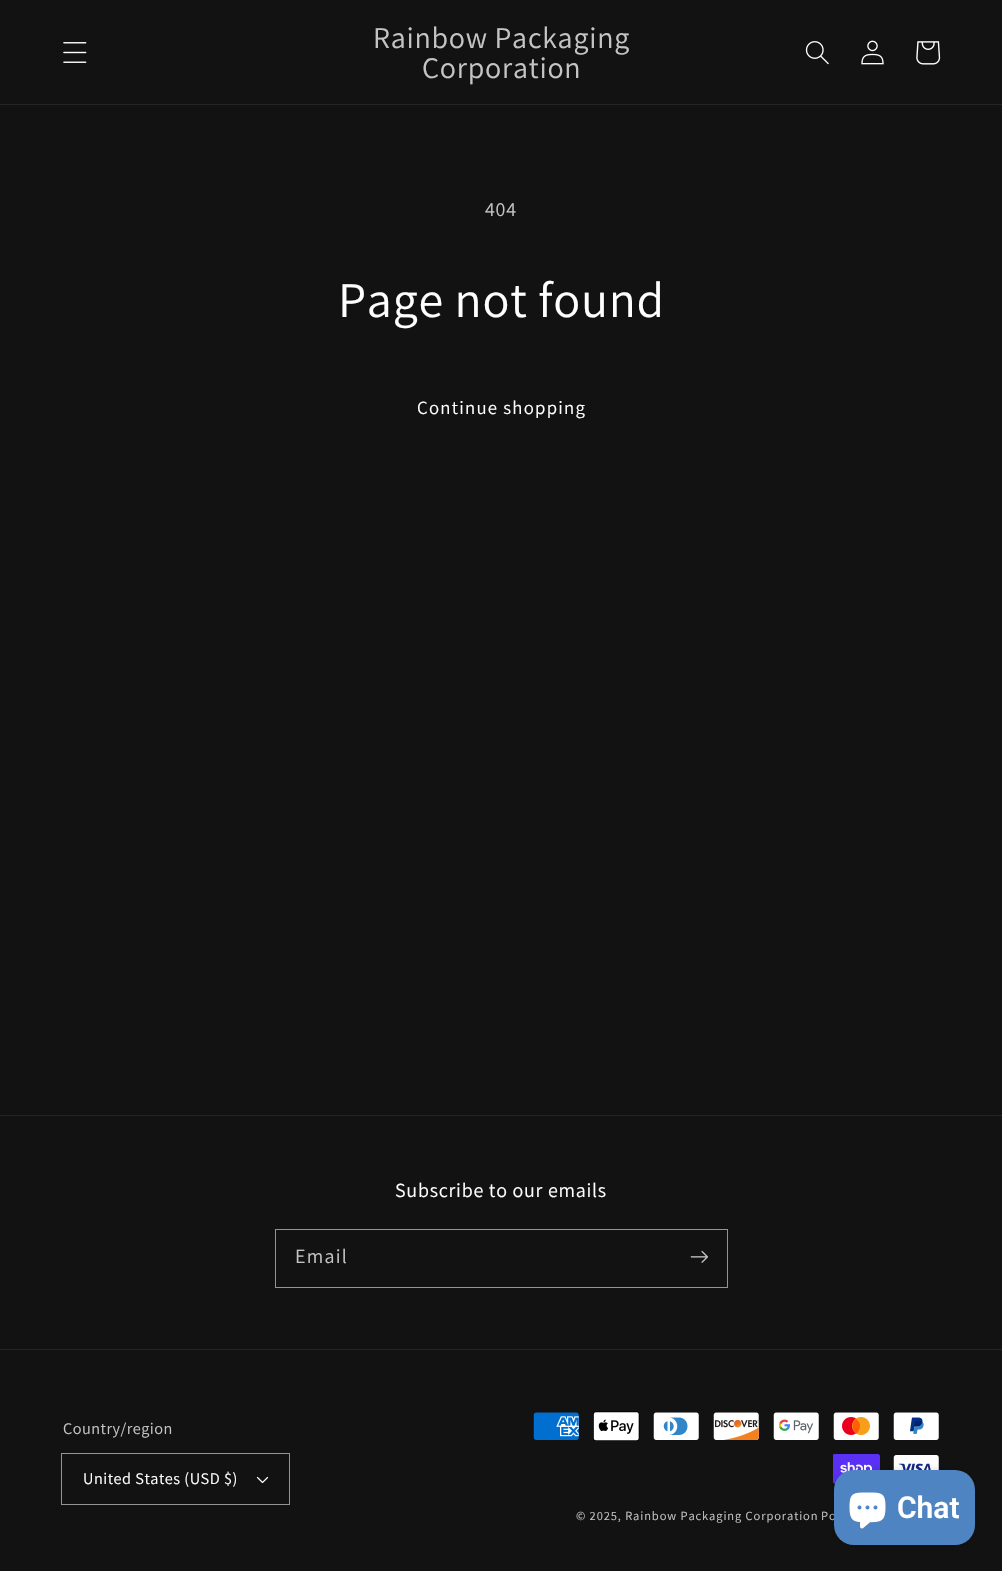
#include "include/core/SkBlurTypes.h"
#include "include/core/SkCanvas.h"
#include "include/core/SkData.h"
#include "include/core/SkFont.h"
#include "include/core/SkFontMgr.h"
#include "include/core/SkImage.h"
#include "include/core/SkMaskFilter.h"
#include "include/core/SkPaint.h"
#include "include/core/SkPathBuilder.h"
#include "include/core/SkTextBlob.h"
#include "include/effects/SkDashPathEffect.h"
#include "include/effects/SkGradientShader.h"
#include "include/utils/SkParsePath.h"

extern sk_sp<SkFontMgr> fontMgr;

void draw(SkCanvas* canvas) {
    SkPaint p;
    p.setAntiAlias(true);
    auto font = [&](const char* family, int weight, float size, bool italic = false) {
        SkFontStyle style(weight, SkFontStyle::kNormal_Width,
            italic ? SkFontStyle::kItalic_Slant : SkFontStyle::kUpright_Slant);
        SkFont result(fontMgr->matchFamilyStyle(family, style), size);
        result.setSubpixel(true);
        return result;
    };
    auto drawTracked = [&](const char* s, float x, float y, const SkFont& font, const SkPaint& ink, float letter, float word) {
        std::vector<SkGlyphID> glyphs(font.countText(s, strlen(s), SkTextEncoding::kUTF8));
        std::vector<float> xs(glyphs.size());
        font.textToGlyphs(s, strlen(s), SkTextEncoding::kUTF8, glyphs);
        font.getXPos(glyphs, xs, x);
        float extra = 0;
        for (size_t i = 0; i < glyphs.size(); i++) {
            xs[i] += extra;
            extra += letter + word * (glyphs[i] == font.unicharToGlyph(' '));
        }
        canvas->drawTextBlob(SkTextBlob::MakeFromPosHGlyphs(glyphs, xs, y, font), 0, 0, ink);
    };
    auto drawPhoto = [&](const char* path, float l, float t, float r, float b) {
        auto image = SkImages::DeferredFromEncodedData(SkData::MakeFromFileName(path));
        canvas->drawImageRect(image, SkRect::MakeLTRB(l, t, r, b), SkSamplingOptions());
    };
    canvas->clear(0xFF121212);
    p.setColor(0xFF252525);
    canvas->drawRect(SkRect::MakeLTRB(0, 104, 1002, 105), p);
    drawPhoto("media/1.png", 63, 42, 87, 63);
    auto font1 = font("Assistant", 400, 30);
    p.setColor(0xFFC4C4C4);
    drawTracked("Rainbow Packaging", 373, 48, font1, p, 0.75f, 0);
    drawTracked("Corporation", 422, 78, font1, p, 0.75f, 0);
    drawPhoto("media/2.png", 805, 41, 829, 65);
    drawPhoto("media/3.png", 861, 40, 884, 65);
    drawPhoto("media/4.png", 916, 41, 941, 65);
    auto font2 = font("Assistant", 400, 20);
    drawTracked("404", 485, 216, font2, p, 0.75f, 0);
    auto font3 = font("Assistant", 400, 50);
    p.setColor(0xFFFFFFFF);
    drawTracked("Page not found", 338, 317, font3, p, 0.75f, 0);
    auto font4 = font("Assistant", 400, 18.75f);
    drawTracked("Continue shopping", 417, 414, font4, p, 1.25f, 0);
    p.setColor(0xFF252525);
    canvas->drawRect(SkRect::MakeLTRB(0, 1115, 1002, 1116), p);
    p.setColor(0xFFFFFFFF);
    drawTracked("Subscribe to our emails", 395, 1197, font2, p, 0.75f, 0);
    p.setStyle(SkPaint::kStroke_Style);
    p.setStrokeWidth(1);
    p.setColor(0xFF949494);
    canvas->drawRect(SkRect::MakeLTRB(275.5f, 1229.5f, 727.5f, 1287.5f), p);
    p.setStyle(SkPaint::kFill_Style);
    p.setColor(0xFFC4C4C4);
    drawTracked("Email", 295, 1263, font2, p, 1.25f, 0);
    drawPhoto("media/5.png", 690, 1250, 708, 1263);
    p.setColor(0xFF252525);
    canvas->drawRect(SkRect::MakeLTRB(0, 1349, 1002, 1350), p);
    auto font5 = font("Assistant", 400, 16.25f);
    p.setColor(0xFFC4C4C4);
    drawTracked("Country/region", 63, 1434, font5, p, 0.5f, 0);
    p.setStyle(SkPaint::kStroke_Style);
    p.setColor(0xFF949494);
    canvas->drawRect(SkRect::MakeLTRB(61.5f, 1453.5f, 289.5f, 1504.5f), p);
    p.setStyle(SkPaint::kFill_Style);
    p.setColor(0xFFFFFFFF);
    drawTracked("United States (USD $)", 83, 1484, font5, p, 0.5f, 0);
    drawPhoto("media/6.png", 256, 1476, 269, 1484);
    drawPhoto("media/7.png", 533, 1412, 579, 1440);
    drawPhoto("media/8.png", 593, 1411, 640, 1441);
    drawPhoto("media/9.png", 653, 1412, 699, 1440);
    drawPhoto("media/10.png", 713, 1412, 759, 1440);
    drawPhoto("media/11.png", 773, 1412, 819, 1440);
    drawPhoto("media/12.png", 833, 1412, 879, 1440);
    drawPhoto("media/13.png", 893, 1412, 939, 1440);
    drawPhoto("media/14.png", 833, 1454, 880, 1484);
    drawPhoto("media/15.png", 893, 1455, 939, 1470);
    auto font6 = font("Assistant", 400, 12.5f);
    p.setColor(0xFFC4C4C4);
    drawTracked("© 2025, Rainbow Packaging Corporation", 576, 1520, font6, p, 0.9f, 0);
    drawTracked("Po", 821, 1520, font6, p, 0.9f, 0);
    p.setColor(0x26000000);
    p.setMaskFilter(SkMaskFilter::MakeBlur(kNormal_SkBlurStyle, 3));
    canvas->drawRoundRect(SkRect::MakeLTRB(834, 1470, 975, 1545), 20, 20, p);
    p.setMaskFilter(nullptr);
    p.setColor(0xFF4F84C2);
    canvas->drawRoundRect(SkRect::MakeLTRB(834, 1470, 975, 1545), 20, 20, p);
    drawPhoto("media/16.png", 849, 1492, 886, 1529);
    auto font7 = font("Roboto", 600, 30);
    p.setColor(0xFFFFFFFF);
    canvas->drawString("Chat", 897, 1518, font7, p);
}
